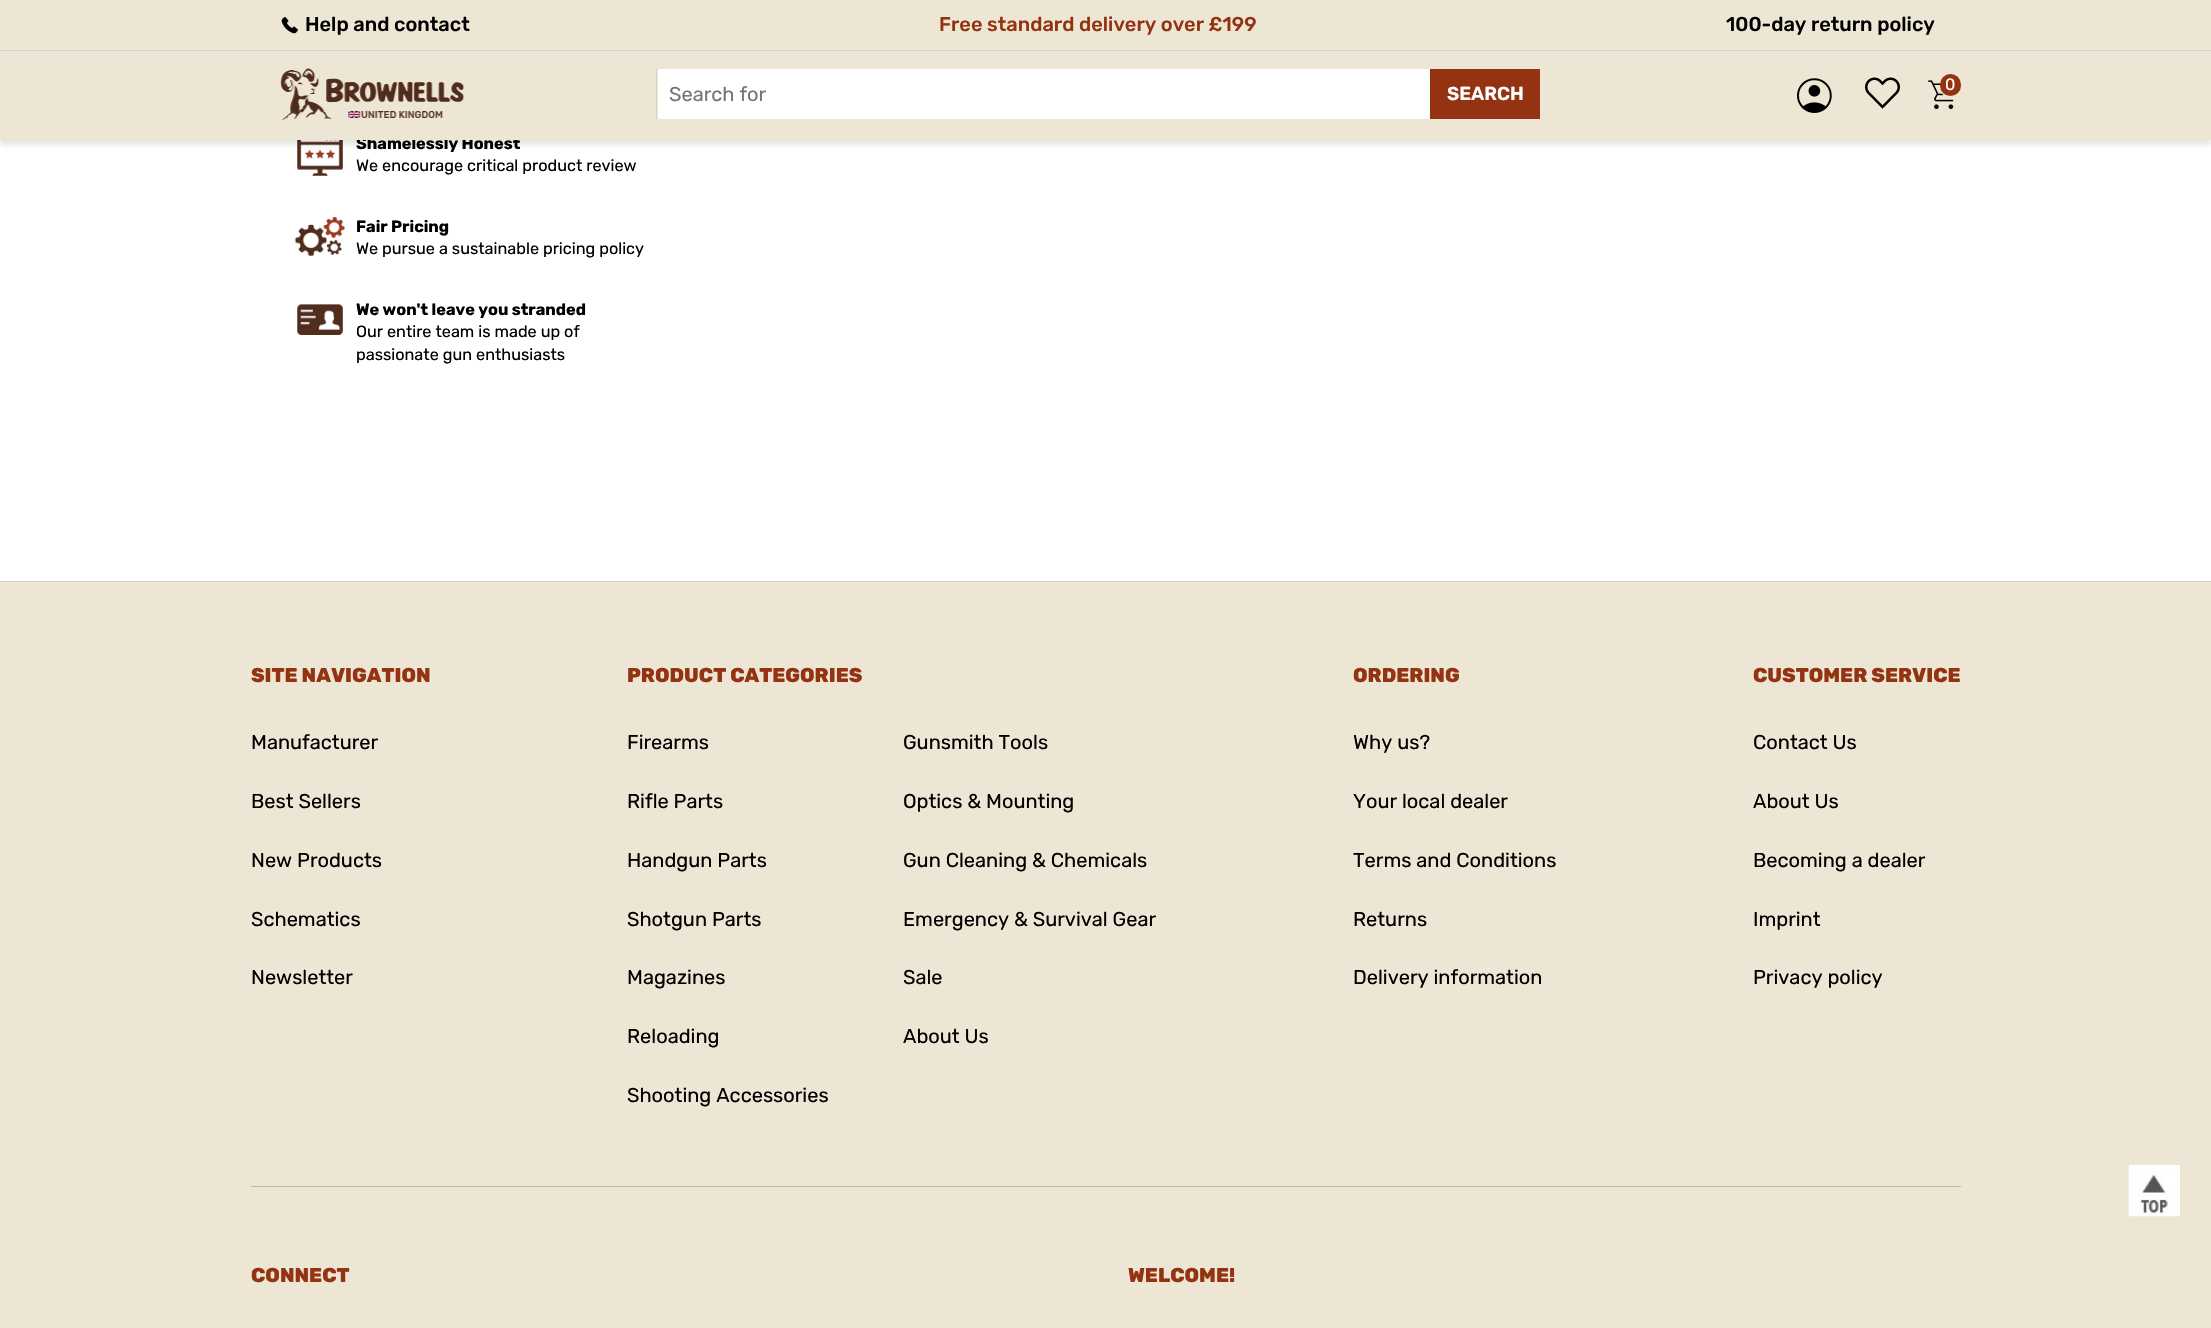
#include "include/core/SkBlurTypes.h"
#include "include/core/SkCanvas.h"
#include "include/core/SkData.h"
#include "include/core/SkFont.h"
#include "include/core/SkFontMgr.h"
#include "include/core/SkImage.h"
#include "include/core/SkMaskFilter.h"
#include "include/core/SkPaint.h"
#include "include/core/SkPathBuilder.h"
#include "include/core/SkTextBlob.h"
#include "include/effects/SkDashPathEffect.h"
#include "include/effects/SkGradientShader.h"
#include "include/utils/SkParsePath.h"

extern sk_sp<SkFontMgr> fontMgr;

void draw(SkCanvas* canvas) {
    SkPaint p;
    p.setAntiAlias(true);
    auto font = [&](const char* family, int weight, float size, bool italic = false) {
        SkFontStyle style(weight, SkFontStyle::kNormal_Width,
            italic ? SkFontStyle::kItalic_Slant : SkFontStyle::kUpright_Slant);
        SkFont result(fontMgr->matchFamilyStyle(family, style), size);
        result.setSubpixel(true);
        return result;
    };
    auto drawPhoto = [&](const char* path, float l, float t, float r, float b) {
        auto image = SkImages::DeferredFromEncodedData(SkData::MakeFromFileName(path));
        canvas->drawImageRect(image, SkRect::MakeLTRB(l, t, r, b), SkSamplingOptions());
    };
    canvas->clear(0xFFFFFFFF);
    drawPhoto("media/6.png", 297, 140, 343, 176);
    p.setColor(0x1A000000);
    p.setMaskFilter(SkMaskFilter::MakeBlur(kNormal_SkBlurStyle, 2.5f));
    canvas->drawRect(SkRect::MakeLTRB(0, 55, 2211, 145), p);
    p.setMaskFilter(nullptr);
    p.setColor(0xFFEDE6D4);
    canvas->drawRect(SkRect::MakeLTRB(0, 0, 2211, 50), p);
    p.setColor(0xFFD3CFCF);
    canvas->drawRect(SkRect::MakeLTRB(0, 50, 2211, 51), p);
    drawPhoto("media/1.png", 281, 17, 298, 34);
    auto font1 = font("Rubik", 500, 20);
    p.setColor(0xFF000000);
    canvas->drawString("Help and contact", 305, 31, font1, p);
    p.setColor(0xFF933311);
    canvas->drawString("Free standard delivery over £199", 939, 31, font1, p);
    p.setColor(0xFF000000);
    canvas->drawString("100-day return policy", 1726, 31, font1, p);
    auto font2 = font("Rubik", 700, 16.25f);
    canvas->drawString("Shamelessly Honest", 356, 149, font2, p);
    p.setColor(0xFFEDE6D4);
    canvas->drawRect(SkRect::MakeLTRB(0, 51, 2211, 140), p);
    drawPhoto("media/2.png", 280, 68, 465, 120);
    drawPhoto("media/3.png", 1797, 78, 1832, 113);
    drawPhoto("media/4.png", 1865, 77, 1900, 109);
    drawPhoto("media/5.png", 1928, 80, 1954, 109);
    p.setColor(0xFF933311);
    canvas->drawRoundRect(SkRect::MakeLTRB(1940, 74, 1961, 96), 10.5f, 10.5f, p);
    auto font3 = font("Rubik", 400, 16.25f);
    p.setColor(0xFFFFFFFF);
    canvas->drawString("0", 1945, 90, font3, p);
    p.setStyle(SkPaint::kStroke_Style);
    p.setStrokeWidth(1);
    p.setColor(0xFFD6D7C9);
    canvas->drawRect(SkRect::MakeLTRB(656.5f, 69.5f, 1539.5f, 118.5f), p);
    p.setStyle(SkPaint::kFill_Style);
    p.setColor(0xFFFFFFFF);
    canvas->drawRect(SkRect::MakeLTRB(658, 69, 1430, 119), p);
    auto font4 = font("Rubik", 400, 20);
    p.setColor(0xFF757575);
    canvas->drawString("Search for", 669, 101, font4, p);
    p.setColor(0xFF933311);
    canvas->drawRect(SkRect::MakeLTRB(1430, 69, 1540, 119), p);
    auto font5 = font("Rubik", 600, 18.75f);
    p.setColor(0xFFFFFFFF);
    canvas->drawString("SEARCH", 1447, 100, font5, p);
    p.setColor(0xFF000000);
    canvas->drawString("We encourage critical product review", 356, 171, font3, p);
    drawPhoto("media/7.png", 295, 217, 345, 256);
    canvas->drawString("Fair Pricing", 356, 232, font2, p);
    canvas->drawString("We pursue a sustainable pricing policy", 356, 254, font3, p);
    drawPhoto("media/8.png", 297, 304, 343, 335);
    canvas->drawString("We won't leave you stranded", 356, 315, font2, p);
    canvas->drawString("Our entire team is made up of", 356, 337, font3, p);
    canvas->drawString("passionate gun enthusiasts", 356, 360, font3, p);
    p.setColor(0xFFEDE6D4);
    canvas->drawRect(SkRect::MakeLTRB(0, 582, 2211, 1328), p);
    p.setColor(0xFFD4D1C8);
    canvas->drawRect(SkRect::MakeLTRB(0, 581, 2211, 582), p);
    auto font6 = font("Rubik", 800, 20);
    p.setColor(0xFF933311);
    canvas->drawString("SITE NAVIGATION", 251, 682, font6, p);
    p.setColor(0xFF000000);
    {
        const struct { const char* s; float x, y; } items[] = {
            {"Manufacturer", 251, 749},
            {"Best Sellers", 251, 808},
            {"New Products", 251, 867},
            {"Schematics", 251, 926},
            {"Newsletter", 251, 984},
        };
        for (auto [s, x, y] : items) {
            canvas->drawString(s, x, y, font4, p);
        }
    }
    p.setColor(0xFF933311);
    canvas->drawString("PRODUCT CATEGORIES", 627, 682, font6, p);
    p.setColor(0xFF000000);
    {
        const struct { const char* s; float x, y; } items[] = {
            {"Firearms", 627, 749},
            {"Rifle Parts", 627, 808},
            {"Handgun Parts", 627, 867},
            {"Shotgun Parts", 627, 926},
            {"Magazines", 627, 984},
            {"Reloading", 627, 1043},
            {"Shooting Accessories", 627, 1102},
            {"Gunsmith Tools", 903, 749},
            {"Optics & Mounting", 903, 808},
            {"Gun Cleaning & Chemicals", 903, 867},
            {"Emergency & Survival Gear", 903, 926},
            {"Sale", 903, 984},
            {"About Us", 903, 1043},
        };
        for (auto [s, x, y] : items) {
            canvas->drawString(s, x, y, font4, p);
        }
    }
    p.setColor(0xFF933311);
    canvas->drawString("ORDERING", 1353, 682, font6, p);
    p.setColor(0xFF000000);
    {
        const struct { const char* s; float x, y; } items[] = {
            {"Why us?", 1353, 749},
            {"Your local dealer", 1353, 808},
            {"Terms and Conditions", 1353, 867},
            {"Returns", 1353, 926},
            {"Delivery information", 1353, 984},
        };
        for (auto [s, x, y] : items) {
            canvas->drawString(s, x, y, font4, p);
        }
    }
    p.setColor(0xFF933311);
    canvas->drawString("CUSTOMER SERVICE", 1753, 682, font6, p);
    p.setColor(0xFF000000);
    {
        const struct { const char* s; float x, y; } items[] = {
            {"Contact Us", 1753, 749},
            {"About Us", 1753, 808},
            {"Becoming a dealer", 1753, 867},
            {"Imprint", 1753, 926},
            {"Privacy policy", 1753, 984},
        };
        for (auto [s, x, y] : items) {
            canvas->drawString(s, x, y, font4, p);
        }
    }
    p.setColor(0xFFBEB9AD);
    canvas->drawRect(SkRect::MakeLTRB(251, 1186, 1961, 1187), p);
    p.setColor(0xFF933311);
    canvas->drawString("CONNECT", 251, 1282, font6, p);
    canvas->drawString("WELCOME!", 1128, 1282, font6, p);
    drawPhoto("media/9.png", 2128, 1165, 2180, 1217);
}
